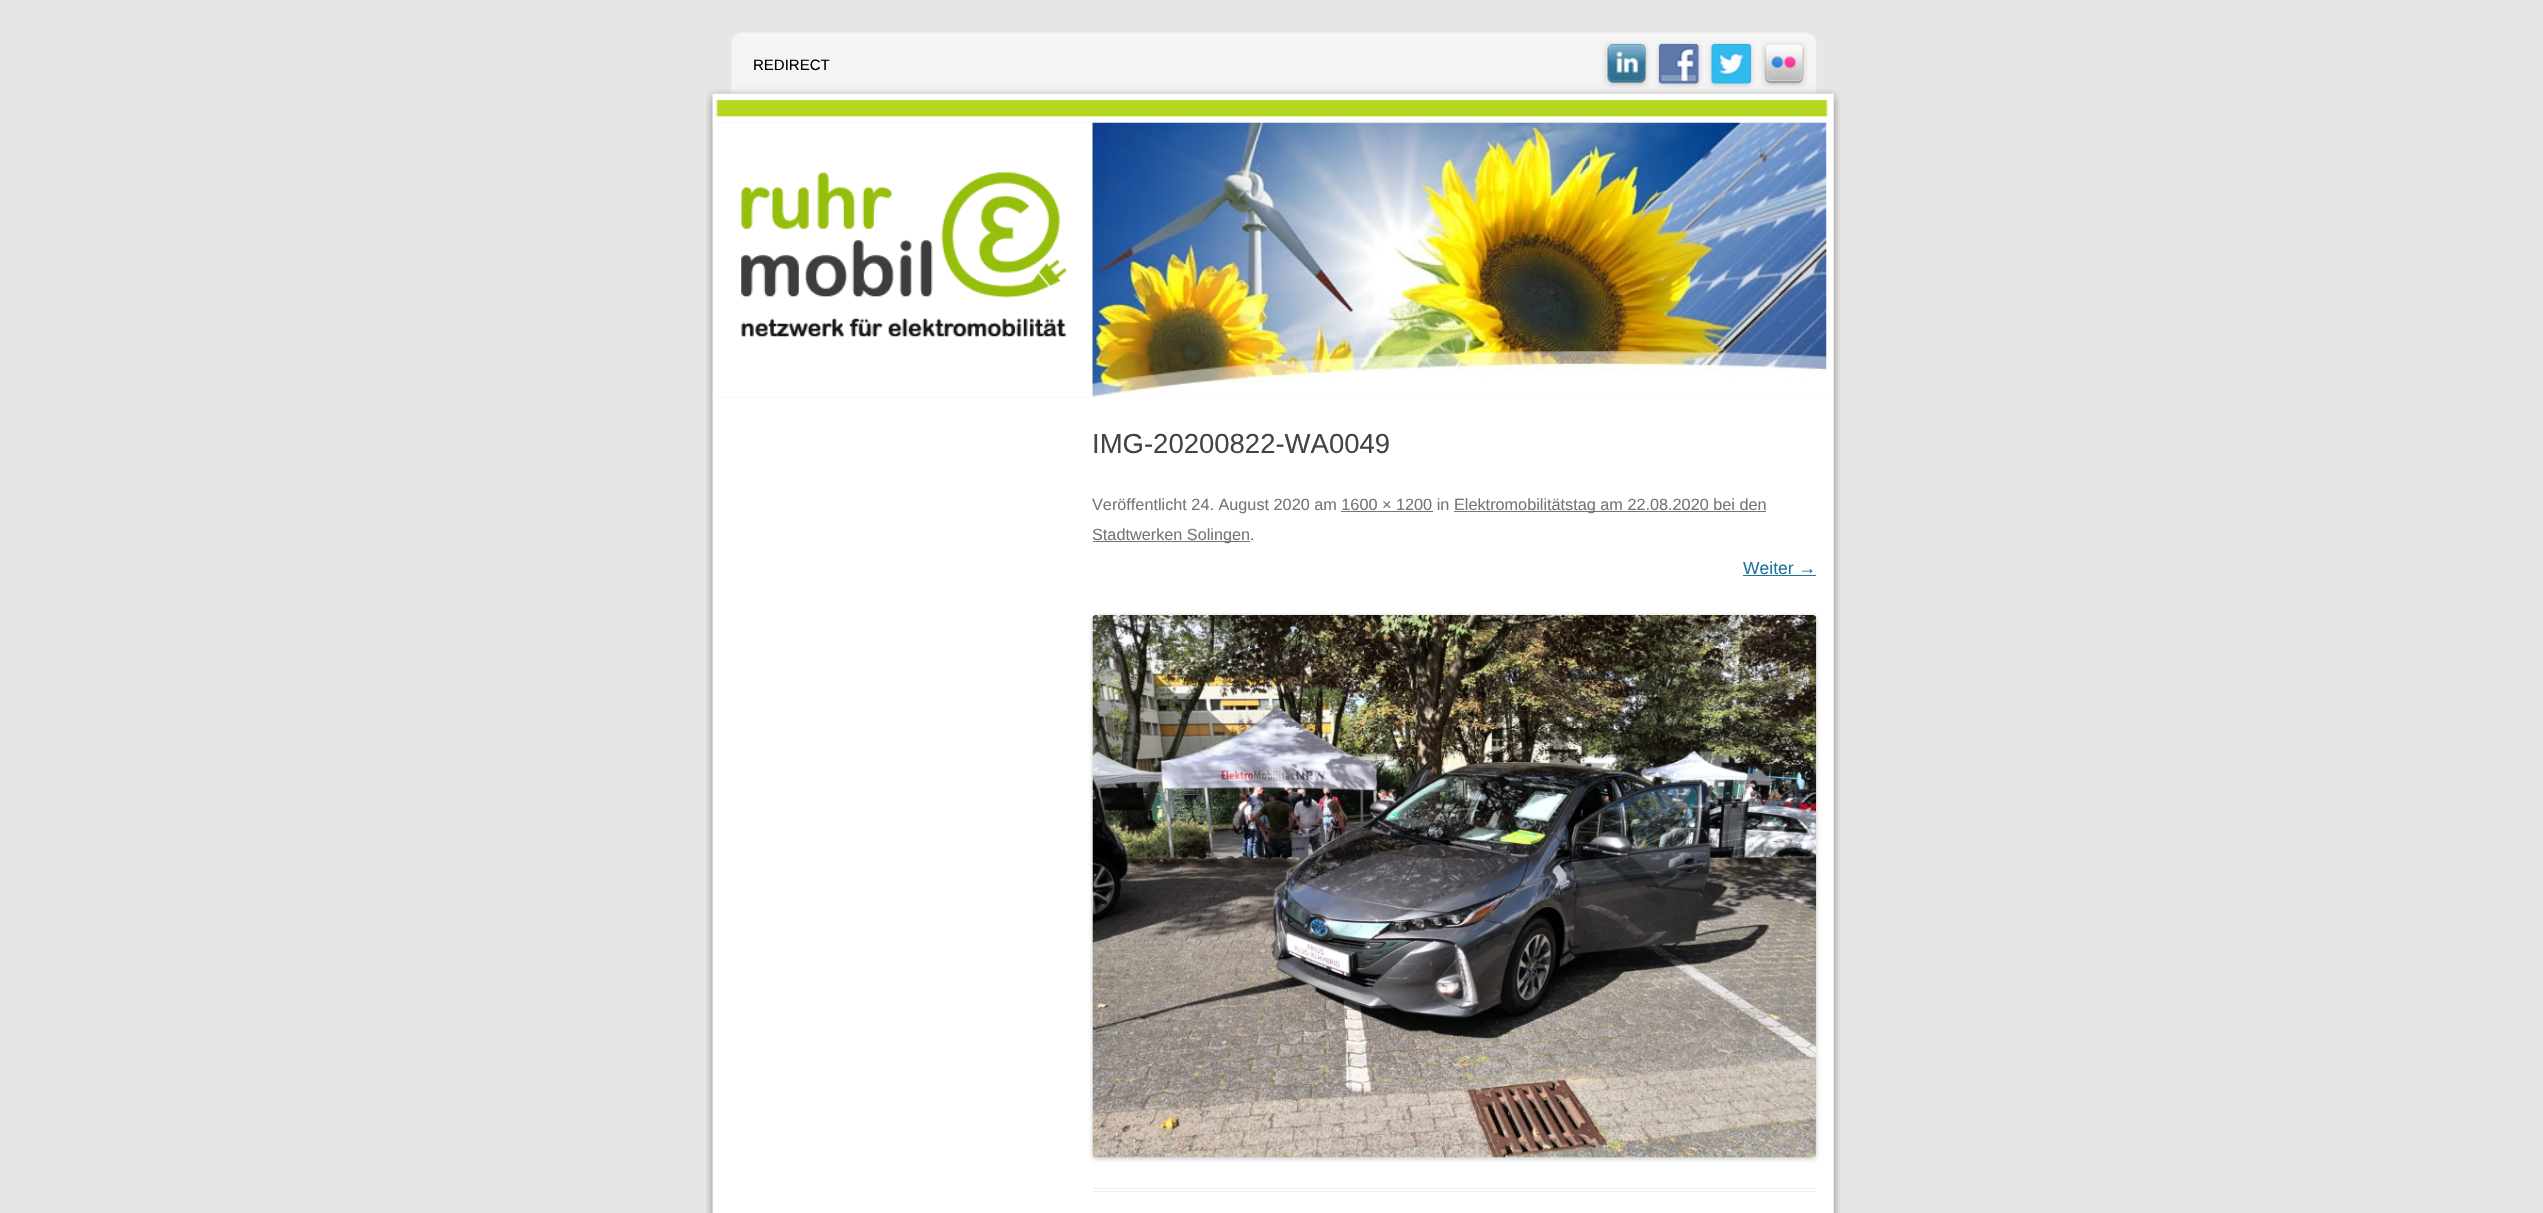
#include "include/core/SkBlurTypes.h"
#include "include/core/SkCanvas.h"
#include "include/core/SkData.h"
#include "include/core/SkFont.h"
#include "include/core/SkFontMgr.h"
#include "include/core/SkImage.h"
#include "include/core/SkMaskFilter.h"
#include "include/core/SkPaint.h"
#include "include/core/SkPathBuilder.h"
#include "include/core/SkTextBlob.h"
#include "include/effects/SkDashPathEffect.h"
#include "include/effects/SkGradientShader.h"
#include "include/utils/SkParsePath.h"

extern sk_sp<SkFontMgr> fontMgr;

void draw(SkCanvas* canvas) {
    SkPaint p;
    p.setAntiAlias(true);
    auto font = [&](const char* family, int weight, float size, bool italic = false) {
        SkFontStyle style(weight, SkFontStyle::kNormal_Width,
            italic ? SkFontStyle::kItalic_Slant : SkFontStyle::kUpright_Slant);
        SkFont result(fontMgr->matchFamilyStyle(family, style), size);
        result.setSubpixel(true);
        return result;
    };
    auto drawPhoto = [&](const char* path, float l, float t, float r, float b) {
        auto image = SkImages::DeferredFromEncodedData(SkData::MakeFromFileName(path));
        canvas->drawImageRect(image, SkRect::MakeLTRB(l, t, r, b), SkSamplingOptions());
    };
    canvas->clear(0xFFE6E6E6);
    drawPhoto("media/6.png", 706, 122, 1840, 398);
    drawPhoto("media/7.png", 1092, 122, 1827, 398);
    drawPhoto("media/1.png", 706, 32, 1840, 123);
    auto font1 = font("Liberation Sans", 400, 15);
    p.setColor(0xFF000000);
    canvas->drawString("REDIRECT", 753, 70, font1, p);
    canvas->save();
    canvas->clipPath(SkPathBuilder(SkPathFillType::kEvenOdd).moveTo(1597, 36).lineTo(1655, 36).lineTo(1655, 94).lineTo(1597, 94).close().moveTo(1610, 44).lineTo(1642, 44).cubicTo(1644, 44, 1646, 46, 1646, 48).lineTo(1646, 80).cubicTo(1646, 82, 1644, 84, 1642, 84).lineTo(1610, 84).cubicTo(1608, 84, 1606, 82, 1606, 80).lineTo(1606, 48).cubicTo(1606, 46, 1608, 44, 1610, 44).close().detach(), true);
    p.setColor(0x29000000);
    p.setMaskFilter(SkMaskFilter::MakeBlur(kNormal_SkBlurStyle, 2.5f));
    canvas->drawRoundRect(SkRect::MakeLTRB(1606, 45, 1646, 85), 4, 4, p);
    p.setMaskFilter(nullptr);
    canvas->restore();
    canvas->save();
    canvas->clipPath(SkPathBuilder(SkPathFillType::kEvenOdd).moveTo(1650, 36).lineTo(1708, 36).lineTo(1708, 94).lineTo(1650, 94).close().moveTo(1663, 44).lineTo(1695, 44).cubicTo(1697, 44, 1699, 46, 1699, 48).lineTo(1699, 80).cubicTo(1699, 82, 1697, 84, 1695, 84).lineTo(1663, 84).cubicTo(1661, 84, 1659, 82, 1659, 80).lineTo(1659, 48).cubicTo(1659, 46, 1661, 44, 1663, 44).close().detach(), true);
    p.setMaskFilter(SkMaskFilter::MakeBlur(kNormal_SkBlurStyle, 2.5f));
    canvas->drawRoundRect(SkRect::MakeLTRB(1659, 45, 1699, 85), 4, 4, p);
    p.setMaskFilter(nullptr);
    canvas->restore();
    canvas->save();
    canvas->clipPath(SkPathBuilder(SkPathFillType::kEvenOdd).moveTo(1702, 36).lineTo(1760, 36).lineTo(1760, 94).lineTo(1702, 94).close().moveTo(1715, 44).lineTo(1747, 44).cubicTo(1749, 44, 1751, 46, 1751, 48).lineTo(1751, 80).cubicTo(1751, 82, 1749, 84, 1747, 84).lineTo(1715, 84).cubicTo(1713, 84, 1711, 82, 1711, 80).lineTo(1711, 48).cubicTo(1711, 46, 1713, 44, 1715, 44).close().detach(), true);
    p.setMaskFilter(SkMaskFilter::MakeBlur(kNormal_SkBlurStyle, 2.5f));
    canvas->drawRoundRect(SkRect::MakeLTRB(1711, 45, 1751, 85), 4, 4, p);
    p.setMaskFilter(nullptr);
    canvas->restore();
    canvas->save();
    canvas->clipPath(SkPathBuilder(SkPathFillType::kEvenOdd).moveTo(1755, 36).lineTo(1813, 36).lineTo(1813, 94).lineTo(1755, 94).close().moveTo(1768, 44).lineTo(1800, 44).cubicTo(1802, 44, 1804, 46, 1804, 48).lineTo(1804, 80).cubicTo(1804, 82, 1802, 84, 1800, 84).lineTo(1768, 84).cubicTo(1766, 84, 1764, 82, 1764, 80).lineTo(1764, 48).cubicTo(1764, 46, 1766, 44, 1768, 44).close().detach(), true);
    p.setMaskFilter(SkMaskFilter::MakeBlur(kNormal_SkBlurStyle, 2.5f));
    canvas->drawRoundRect(SkRect::MakeLTRB(1764, 45, 1804, 85), 4, 4, p);
    p.setMaskFilter(nullptr);
    canvas->restore();
    drawPhoto("media/2.png", 1606, 43, 1647, 84);
    drawPhoto("media/3.png", 1658, 43, 1699, 84);
    drawPhoto("media/4.png", 1711, 43, 1752, 84);
    drawPhoto("media/5.png", 1764, 44, 1804, 84);
    drawPhoto("media/8.png", 741, 172, 1067, 337);
    drawPhoto("media/9.png", 706, 397, 1840, 1213);
    p.setColor(0xFFEDEDED);
    canvas->drawRect(SkRect::MakeLTRB(1093, 1188, 1816, 1189), p);
    canvas->drawRect(SkRect::MakeLTRB(1093, 1191, 1816, 1192), p);
    auto font2 = font("Liberation Sans", 400, 27.5f);
    p.setColor(0xFF444444);
    canvas->drawString("IMG-20200822-WA0049", 1092, 453, font2, p);
    auto font3 = font("Liberation Sans", 400, 16.25f);
    p.setColor(0xFF757575);
    canvas->drawString("Veröffentlicht 24. August 2020 am 1600 × 1200 in", 1092, 510, font3, p);
    canvas->drawRect(SkRect::MakeLTRB(1454, 511, 1766, 512), p);
    canvas->drawString("Elektromobilitätstag am 22.08.2020 bei den", 1454, 510, font3, p);
    canvas->drawRect(SkRect::MakeLTRB(1341, 511, 1433, 512), p);
    canvas->drawRect(SkRect::MakeLTRB(1093, 541, 1250, 542), p);
    canvas->drawString("Stadtwerken Solingen.", 1092, 540, font3, p);
    auto font4 = font("Liberation Sans", 400, 17.5f);
    p.setColor(0xFF21759B);
    canvas->drawString("Weiter →", 1743, 574, font4, p);
    canvas->drawRect(SkRect::MakeLTRB(1743, 575, 1816, 576), p);
    p.setColor(0x33000000);
    p.setMaskFilter(SkMaskFilter::MakeBlur(kNormal_SkBlurStyle, 2.5f));
    canvas->drawRoundRect(SkRect::MakeLTRB(1093, 616, 1816, 1159), 4, 4, p);
    p.setMaskFilter(nullptr);
    drawPhoto("media/10.png", 1092, 615, 1817, 1158);
}
